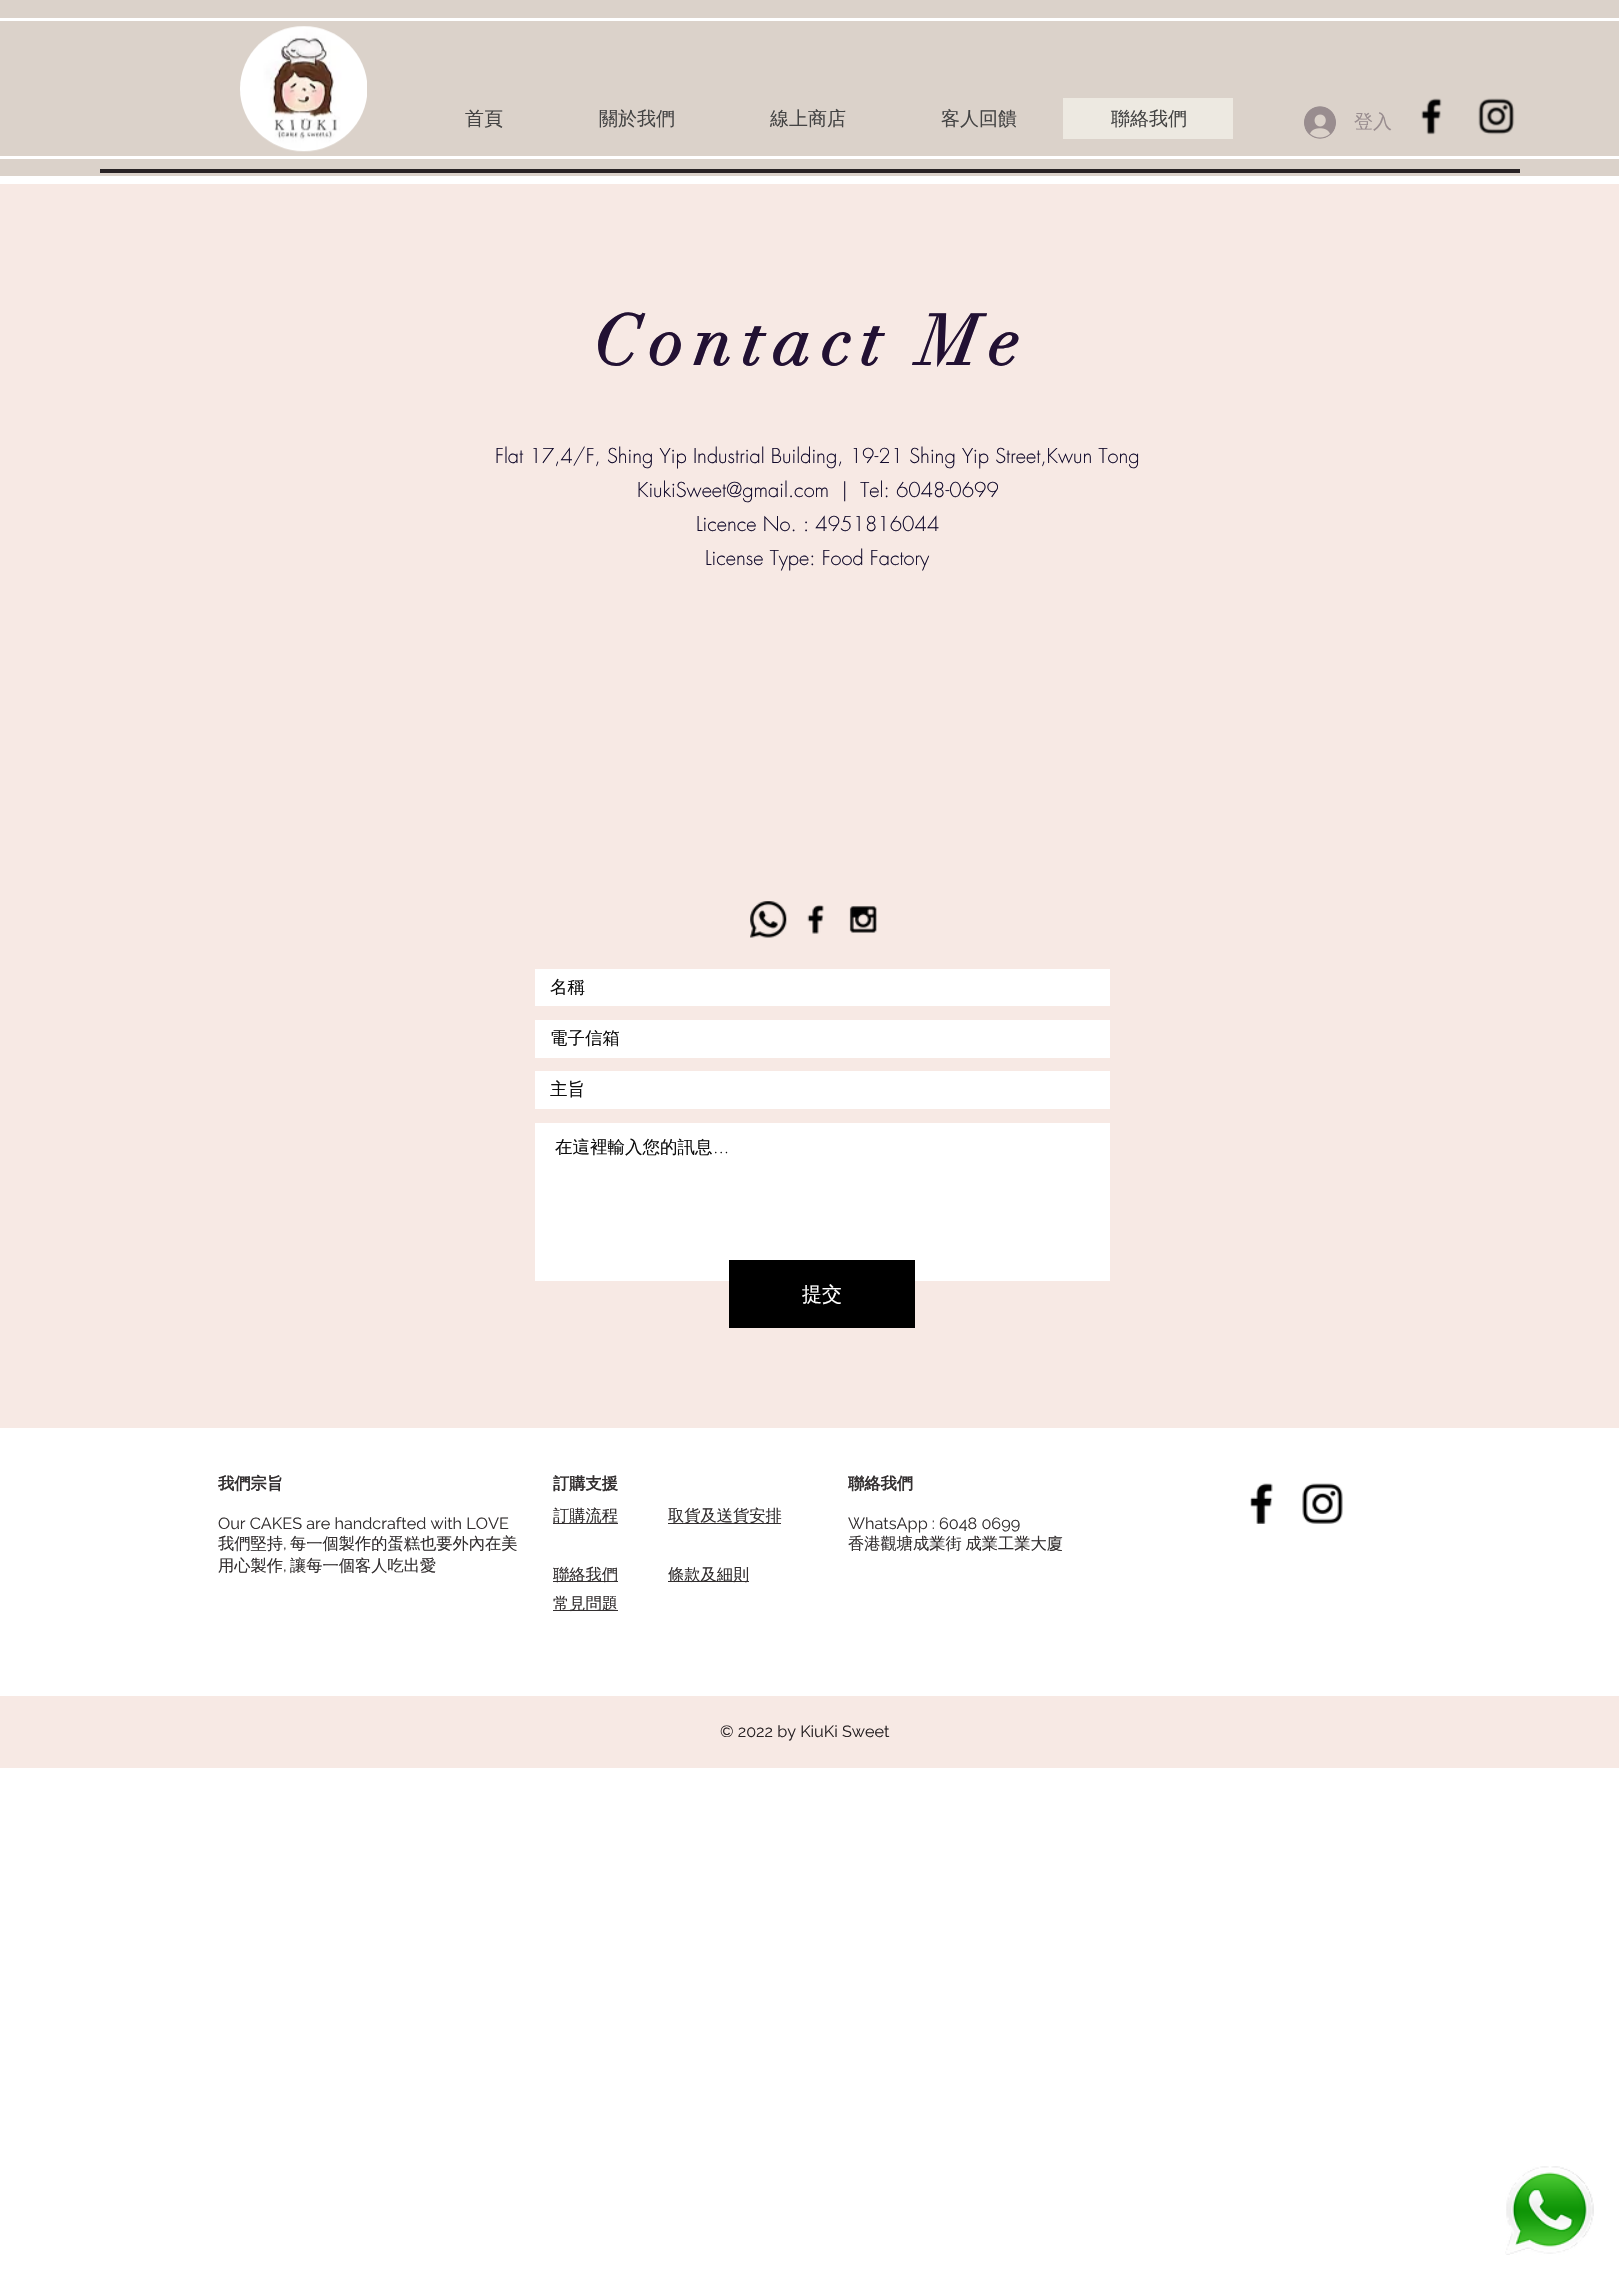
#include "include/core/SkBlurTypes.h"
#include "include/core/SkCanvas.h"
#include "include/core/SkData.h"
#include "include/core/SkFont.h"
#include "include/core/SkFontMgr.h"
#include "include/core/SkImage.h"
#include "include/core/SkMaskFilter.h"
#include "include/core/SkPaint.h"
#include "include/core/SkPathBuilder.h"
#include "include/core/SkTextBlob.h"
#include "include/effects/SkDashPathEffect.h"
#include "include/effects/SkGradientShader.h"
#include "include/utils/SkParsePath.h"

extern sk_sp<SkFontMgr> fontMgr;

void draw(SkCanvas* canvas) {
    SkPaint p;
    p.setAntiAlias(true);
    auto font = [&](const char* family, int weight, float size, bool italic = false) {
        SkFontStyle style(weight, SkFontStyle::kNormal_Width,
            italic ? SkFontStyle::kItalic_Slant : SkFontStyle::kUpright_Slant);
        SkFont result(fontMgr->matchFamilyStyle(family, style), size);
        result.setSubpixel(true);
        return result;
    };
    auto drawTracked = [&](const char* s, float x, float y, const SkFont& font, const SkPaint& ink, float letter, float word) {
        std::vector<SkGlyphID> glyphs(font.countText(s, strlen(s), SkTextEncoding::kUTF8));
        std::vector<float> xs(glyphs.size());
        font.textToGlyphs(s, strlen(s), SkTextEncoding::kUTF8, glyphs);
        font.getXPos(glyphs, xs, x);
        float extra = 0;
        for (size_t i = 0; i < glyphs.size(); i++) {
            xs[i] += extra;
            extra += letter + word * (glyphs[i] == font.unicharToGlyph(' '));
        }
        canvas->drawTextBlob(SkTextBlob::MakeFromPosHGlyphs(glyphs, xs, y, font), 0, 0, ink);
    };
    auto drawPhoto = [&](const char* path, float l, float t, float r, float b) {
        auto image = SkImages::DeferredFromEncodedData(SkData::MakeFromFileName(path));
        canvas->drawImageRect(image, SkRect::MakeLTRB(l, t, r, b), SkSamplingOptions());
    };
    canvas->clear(0xFFFFFFFF);
    {
        const struct { float l, t, r, b; SkColor color; } items[] = {
            {0, 0, 1619, 176, 0xFFDBD2CA},
            {0, 18, 1619, 21, 0xFFFFFFFF},
            {0, 156, 1619, 159, 0xFFFFFFFF},
        };
        for (auto [l, t, r, b, color] : items) {
            p.setColor(color);
            canvas->drawRect(SkRect::MakeLTRB(l, t, r, b), p);
        }
    }
    drawPhoto("media/1.png", 240, 26, 367, 152);
    auto font1 = font("WenQuanYi Zen Hei", 500, 19);
    p.setColor(0xFF444444);
    {
        const struct { const char* s; float x, y; } items[] = {
            {"首頁", 465, 125},
            {"關於我們", 599, 125},
            {"線上商店", 770, 125},
            {"客人回饋", 941, 125},
        };
        for (auto [s, x, y] : items) {
            canvas->drawString(s, x, y, font1, p);
        }
    }
    p.setColor(0xFFEDE9E1);
    canvas->drawRect(SkRect::MakeLTRB(1063, 98, 1233, 139), p);
    p.setColor(0xFF444444);
    canvas->drawString("聯絡我們", 1111, 125, font1, p);
    drawPhoto("media/2.png", 1304, 106, 1336, 139);
    p.setColor(0xFF998D8F);
    canvas->drawString("登入", 1354, 128, font1, p);
    drawPhoto("media/3.png", 1421, 98, 1442, 135);
    drawPhoto("media/4.png", 1478, 98, 1515, 135);
    p.setColor(0xFF292325);
    canvas->drawRect(SkRect::MakeLTRB(100, 169, 1520, 173), p);
    p.setColor(0xFFF7E9E4);
    canvas->drawRect(SkRect::MakeLTRB(0, 184, 1619, 1428), p);
    auto font2 = font("didot", 700, 70);
    p.setColor(0xFF221133);
    drawTracked("Contact Me", 594, 365, font2, p, 10.5f, 0);
    auto font3 = font("futura", 300, 20);
    p.setColor(0xFF110A2B);
    {
        const struct { const char* s; float x, y; } items[] = {
            {"Flat 17,4/F, Shing Yip Industrial Building, 19-21 Shing Yip Street,Kwun Tong", 495, 463},
            {"KiukiSweet@gmail.com  |  Tel: 6048-0699", 637, 497},
            {"Licence No. : 4951816044", 696, 531},
            {"License Type: Food Factory", 705, 565},
        };
        for (auto [s, x, y] : items) {
            canvas->drawString(s, x, y, font3, p);
        }
    }
    drawPhoto("media/5.png", 750, 901, 787, 938);
    drawPhoto("media/6.png", 807, 905, 824, 934);
    drawPhoto("media/7.png", 849, 906, 877, 933);
    p.setColor(0xFFFFFFFF);
    canvas->drawRect(SkRect::MakeLTRB(535, 969, 1110, 1006), p);
    auto font4 = font("WenQuanYi Zen Hei", 500, 17.5f);
    p.setColor(0xFF0F0F0F);
    canvas->drawString("名稱", 550, 993, font4, p);
    p.setColor(0xFFFFFFFF);
    canvas->drawRect(SkRect::MakeLTRB(535, 1020, 1110, 1058), p);
    p.setColor(0xFF0F0F0F);
    canvas->drawString("電子信箱", 550, 1044, font4, p);
    p.setColor(0xFFFFFFFF);
    canvas->drawRect(SkRect::MakeLTRB(535, 1071, 1110, 1109), p);
    p.setColor(0xFF0F0F0F);
    canvas->drawString("主旨", 550, 1095, font4, p);
    p.setColor(0xFFFFFFFF);
    canvas->drawRect(SkRect::MakeLTRB(535, 1123, 1110, 1281), p);
    p.setColor(0xFF0F0F0F);
    canvas->drawString("在這裡輸入您的訊息", 555, 1153, font4, p);
    auto font5 = font("futura", 300, 17.5f);
    canvas->drawString("...", 713, 1153, font5, p);
    p.setColor(0xFF000000);
    canvas->drawRect(SkRect::MakeLTRB(729, 1260, 915, 1328), p);
    auto font6 = font("WenQuanYi Zen Hei", 500, 20);
    p.setColor(0xFFFFFFFF);
    canvas->drawString("提交", 802, 1301, font6, p);
    auto font7 = font("WenQuanYi Zen Hei", 700, 16.25f);
    p.setColor(0xFF332F30);
    canvas->drawString("我們宗旨", 218, 1489, font7, p);
    auto font8 = font("Raleway", 400, 16.25f);
    canvas->drawString("Our CAKES are handcrafted with LOVE", 218, 1529, font8, p);
    auto font9 = font("WenQuanYi Zen Hei", 500, 16.25f);
    canvas->drawString("我們堅持", 218, 1549, font9, p);
    canvas->drawString(",", 283, 1549, font8, p);
    canvas->drawString("每一個製作的蛋糕也要外內在美", 290, 1549, font9, p);
    canvas->drawString("用心製作", 218, 1571, font9, p);
    canvas->drawString(",", 283, 1571, font8, p);
    canvas->drawString("讓每一個客人吃出愛", 290, 1571, font9, p);
    canvas->drawString("訂購支援", 553, 1489, font7, p);
    canvas->drawString("聯絡我們", 848, 1489, font7, p);
    canvas->drawString("WhatsApp : 6048 0699", 848, 1529, font8, p);
    drawTracked("香港觀塘成業街 成業工業大廈", 848, 1549, font9, p, 0, -1);
    drawPhoto("media/8.png", 1250, 1483, 1273, 1524);
    drawPhoto("media/9.png", 1302, 1483, 1343, 1524);
    canvas->drawRect(SkRect::MakeLTRB(553, 1523, 618, 1524), p);
    canvas->drawString("訂購流程", 553, 1521, font9, p);
    canvas->drawRect(SkRect::MakeLTRB(668, 1523, 781, 1524), p);
    canvas->drawString("取貨及送貨安排", 668, 1521, font9, p);
    canvas->drawRect(SkRect::MakeLTRB(553, 1581, 618, 1582), p);
    canvas->drawString("聯絡我們", 553, 1580, font9, p);
    canvas->drawRect(SkRect::MakeLTRB(668, 1581, 749, 1582), p);
    canvas->drawString("條款及細則", 668, 1580, font9, p);
    canvas->drawRect(SkRect::MakeLTRB(553, 1610, 618, 1611), p);
    canvas->drawString("常見問題", 553, 1609, font9, p);
    p.setColor(0xFFF7E9E4);
    canvas->drawRect(SkRect::MakeLTRB(0, 1696, 1619, 1768), p);
    p.setColor(0xFF292325);
    canvas->drawString("© 2022 by KiuKi Sweet", 720, 1737, font8, p);
    drawPhoto("media/10.png", 1505, 2166, 1594, 2255);
}
